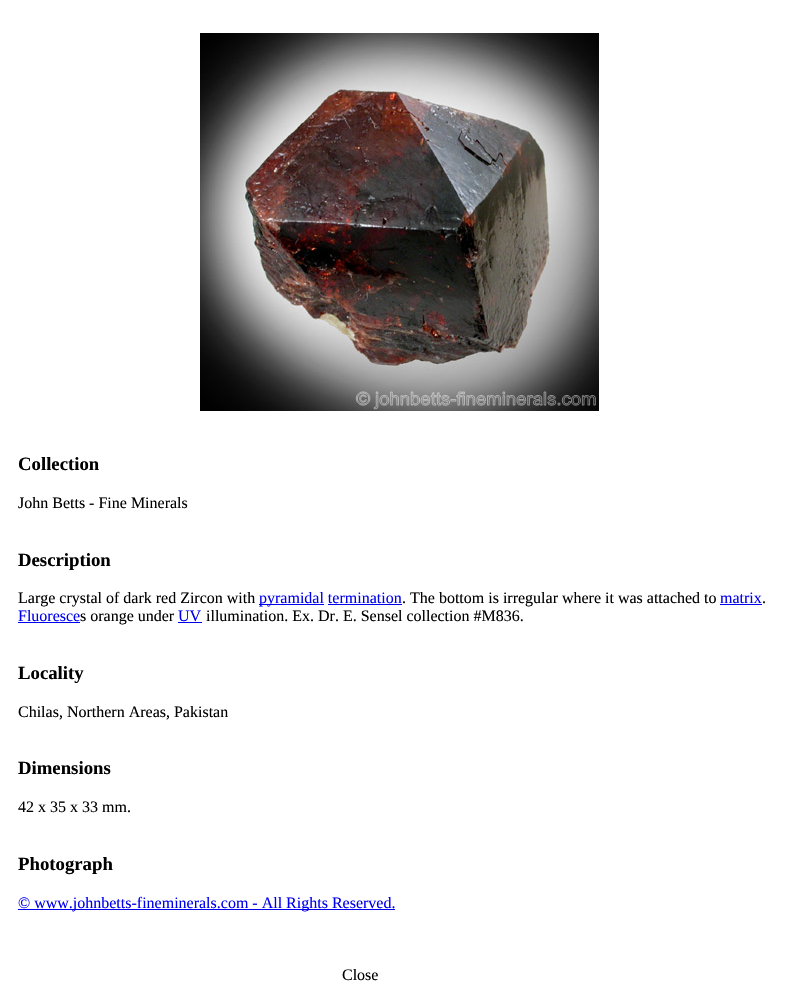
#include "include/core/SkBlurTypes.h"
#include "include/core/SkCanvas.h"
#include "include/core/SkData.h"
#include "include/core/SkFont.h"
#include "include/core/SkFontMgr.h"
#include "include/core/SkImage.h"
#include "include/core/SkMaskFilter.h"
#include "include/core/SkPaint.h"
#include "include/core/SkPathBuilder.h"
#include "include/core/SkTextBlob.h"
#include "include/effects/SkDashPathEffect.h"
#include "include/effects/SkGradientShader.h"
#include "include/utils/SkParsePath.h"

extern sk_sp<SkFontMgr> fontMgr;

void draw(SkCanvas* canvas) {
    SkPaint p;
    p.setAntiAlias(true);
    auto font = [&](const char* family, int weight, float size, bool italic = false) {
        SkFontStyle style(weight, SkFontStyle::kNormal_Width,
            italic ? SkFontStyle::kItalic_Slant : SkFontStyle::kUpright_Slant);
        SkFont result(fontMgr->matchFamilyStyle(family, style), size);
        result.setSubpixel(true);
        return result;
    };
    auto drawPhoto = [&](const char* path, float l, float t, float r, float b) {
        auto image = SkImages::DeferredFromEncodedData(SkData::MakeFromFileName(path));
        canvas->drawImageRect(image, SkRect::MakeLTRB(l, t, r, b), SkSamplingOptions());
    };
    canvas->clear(0xFFFFFFFF);
    drawPhoto("media/1.png", 200, 33, 599, 411);
    auto font1 = font("Liberation Serif", 700, 18.75f);
    p.setColor(0xFF000000);
    canvas->drawString("Collection", 18, 470, font1, p);
    auto font2 = font("Liberation Serif", 400, 16);
    canvas->drawString("John Betts - Fine Minerals", 18, 508, font2, p);
    canvas->drawString("Description", 18, 566, font1, p);
    canvas->drawString("Large crystal of dark red Zircon with", 18, 603, font2, p);
    p.setColor(0xFF0000EE);
    canvas->drawRect(SkRect::MakeLTRB(259, 604, 324, 605), p);
    canvas->drawString("pyramidal termination", 259, 603, font2, p);
    canvas->drawRect(SkRect::MakeLTRB(328, 604, 402, 605), p);
    p.setColor(0xFF000000);
    canvas->drawString(". The bottom is irregular where it was attached to", 402, 603, font2, p);
    p.setColor(0xFF0000EE);
    canvas->drawString("matrix", 720, 603, font2, p);
    p.setColor(0xFF000000);
    canvas->drawString(".", 762, 603, font2, p);
    p.setColor(0xFF0000EE);
    canvas->drawRect(SkRect::MakeLTRB(720, 604, 762, 605), p);
    canvas->drawString("Fluoresce", 18, 621, font2, p);
    p.setColor(0xFF000000);
    canvas->drawString("s orange under", 80, 621, font2, p);
    p.setColor(0xFF0000EE);
    canvas->drawRect(SkRect::MakeLTRB(18, 622, 80, 623), p);
    canvas->drawString("UV", 178, 621, font2, p);
    canvas->drawRect(SkRect::MakeLTRB(178, 622, 202, 623), p);
    p.setColor(0xFF000000);
    canvas->drawString("illumination. Ex. Dr. E. Sensel collection #M836.", 206, 621, font2, p);
    canvas->drawString("Locality", 18, 679, font1, p);
    canvas->drawString("Chilas, Northern Areas, Pakistan", 18, 717, font2, p);
    canvas->drawString("Dimensions", 18, 774, font1, p);
    canvas->drawString("42 x 35 x 33 mm.", 18, 812, font2, p);
    canvas->drawString("Photograph", 18, 870, font1, p);
    p.setColor(0xFF0000EE);
    canvas->drawRect(SkRect::MakeLTRB(18, 909, 395, 910), p);
    canvas->drawString("© www.johnbetts-fineminerals.com - All Rights Reserved.", 18, 908, font2, p);
    p.setColor(0xFF000000);
    canvas->drawString("Close", 342, 980, font2, p);
}
